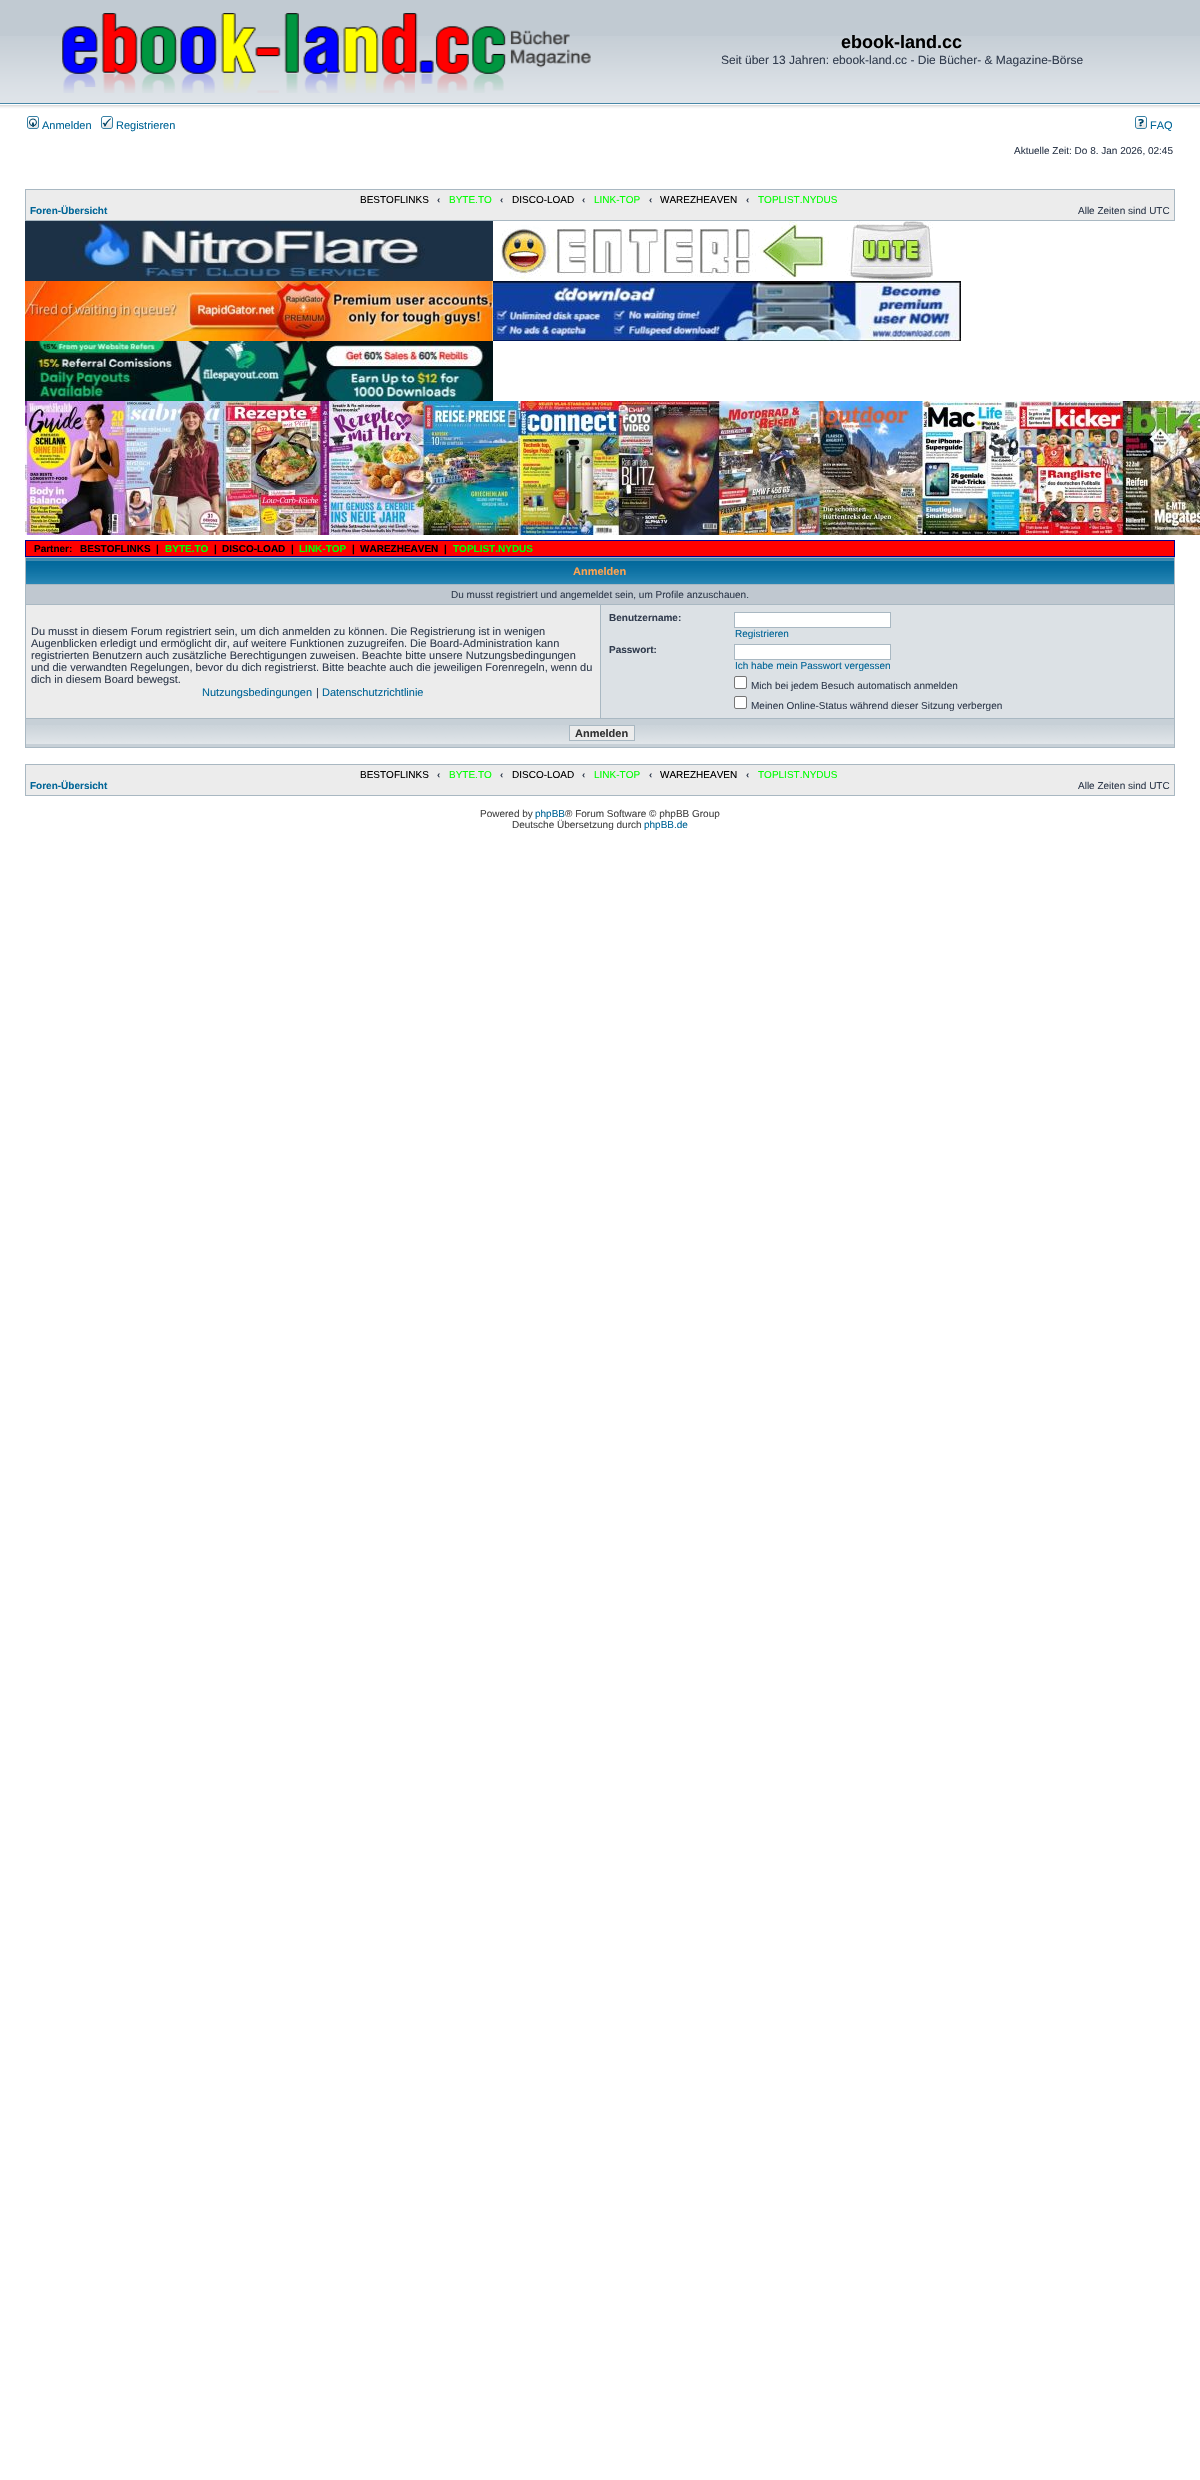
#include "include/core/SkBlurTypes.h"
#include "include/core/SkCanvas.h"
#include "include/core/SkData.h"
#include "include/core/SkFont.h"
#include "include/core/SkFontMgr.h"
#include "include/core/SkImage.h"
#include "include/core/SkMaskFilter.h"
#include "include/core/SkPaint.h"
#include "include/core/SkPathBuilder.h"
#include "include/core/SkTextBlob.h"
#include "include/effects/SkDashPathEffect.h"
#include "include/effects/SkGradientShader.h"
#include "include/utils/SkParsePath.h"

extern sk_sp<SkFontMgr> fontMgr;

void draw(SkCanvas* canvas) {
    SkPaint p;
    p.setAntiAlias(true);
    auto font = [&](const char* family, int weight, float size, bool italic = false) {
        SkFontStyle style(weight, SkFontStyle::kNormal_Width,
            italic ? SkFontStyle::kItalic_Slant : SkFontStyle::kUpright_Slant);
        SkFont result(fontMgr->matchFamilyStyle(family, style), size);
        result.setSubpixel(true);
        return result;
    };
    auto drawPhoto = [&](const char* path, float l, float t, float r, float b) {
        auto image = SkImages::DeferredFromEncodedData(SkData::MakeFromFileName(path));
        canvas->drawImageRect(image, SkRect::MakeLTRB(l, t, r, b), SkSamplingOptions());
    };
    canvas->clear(0xFFFFFFFF);
    p.setColor(0xFFC1CAD2);
    canvas->drawRect(SkRect::MakeLTRB(0, 0, 1200, 36), p);
    drawPhoto("media/1.png", 0, 36, 1200, 114);
    drawPhoto("media/2.png", 62, 13, 591, 93);
    auto font1 = font("Liberation Sans", 700, 18);
    p.setColor(0xFF000000);
    canvas->drawString("ebook-land.cc", 841, 48, font1, p);
    auto font2 = font("Liberation Sans", 400, 12);
    p.setColor(0xFF323D4F);
    canvas->drawString("Seit über 13 Jahren: ebook-land.cc - Die Bücher- & Magazine-Börse", 721, 64, font2, p);
    drawPhoto("media/3.png", 27, 116, 39, 129);
    auto font3 = font("Liberation Sans", 400, 11);
    p.setColor(0xFF006597);
    canvas->drawString("Anmelden", 42, 129, font3, p);
    drawPhoto("media/4.png", 101, 116, 113, 129);
    canvas->drawString("Registrieren", 116, 129, font3, p);
    drawPhoto("media/5.png", 1135, 116, 1147, 129);
    canvas->drawString("FAQ", 1150, 129, font3, p);
    auto font4 = font("Liberation Sans", 400, 10);
    p.setColor(0xFF323D4F);
    canvas->drawString("Aktuelle Zeit: Do 8. Jan 2026, 02:45", 1014, 154, font4, p);
    p.setColor(0xFFA9B8C2);
    canvas->drawRect(SkRect::MakeLTRB(25, 189, 1175, 221), p);
    p.setColor(0xFFECECEC);
    canvas->drawRect(SkRect::MakeLTRB(26, 190, 1174, 220), p);
    p.setColor(0xFF000000);
    canvas->drawString("BESTOFLINKS", 360, 203, font4, p);
    auto font5 = font("Liberation Sans", 700, 10);
    p.setColor(0xFF323D4F);
    canvas->drawString("‹", 437, 203, font5, p);
    p.setColor(0xFF00FF00);
    canvas->drawString("BYTE.TO", 449, 203, font4, p);
    p.setColor(0xFF323D4F);
    canvas->drawString("‹", 500, 203, font5, p);
    p.setColor(0xFF000000);
    canvas->drawString("DISCO-LOAD", 512, 203, font4, p);
    p.setColor(0xFF323D4F);
    canvas->drawString("‹", 582, 203, font5, p);
    p.setColor(0xFF00FF00);
    canvas->drawString("LINK-TOP", 594, 203, font4, p);
    p.setColor(0xFF323D4F);
    canvas->drawString("‹", 649, 203, font5, p);
    p.setColor(0xFF000000);
    canvas->drawString("WAREZHEAVEN", 660, 203, font4, p);
    p.setColor(0xFF323D4F);
    canvas->drawString("‹", 746, 203, font5, p);
    p.setColor(0xFF00FF00);
    canvas->drawString("TOPLIST.NYDUS", 758, 203, font4, p);
    p.setColor(0xFF006597);
    canvas->drawString("Foren-Übersicht", 30, 214, font5, p);
    p.setColor(0xFF323D4F);
    canvas->drawString("Alle Zeiten sind UTC", 1078, 214, font4, p);
    drawPhoto("media/6.png", 25, 221, 493, 281);
    drawPhoto("media/7.png", 493, 221, 933, 281);
    drawPhoto("media/8.png", 25, 281, 493, 341);
    drawPhoto("media/9.png", 493, 281, 961, 341);
    drawPhoto("media/10.png", 25, 341, 493, 401);
    drawPhoto("media/11.png", 25, 401, 1200, 535);
    p.setColor(0xFF00008B);
    canvas->drawRect(SkRect::MakeLTRB(25, 540, 1175, 557), p);
    p.setColor(0xFFFF0000);
    canvas->drawRect(SkRect::MakeLTRB(26, 541, 1174, 556), p);
    p.setColor(0xFF000000);
    {
        const struct { const char* s; float x, y; } items[] = {
            {"Partner:", 34, 552},
            {"BESTOFLINKS", 80, 552},
            {"|", 156, 552},
        };
        for (auto [s, x, y] : items) {
            canvas->drawString(s, x, y, font5, p);
        }
    }
    p.setColor(0xFF00FF00);
    canvas->drawString("BYTE.TO", 165, 552, font5, p);
    p.setColor(0xFF000000);
    {
        const struct { const char* s; float x, y; } items[] = {
            {"|", 214, 552},
            {"DISCO-LOAD", 222, 552},
            {"|", 291, 552},
        };
        for (auto [s, x, y] : items) {
            canvas->drawString(s, x, y, font5, p);
        }
    }
    p.setColor(0xFF00FF00);
    canvas->drawString("LINK-TOP", 299, 552, font5, p);
    p.setColor(0xFF000000);
    {
        const struct { const char* s; float x, y; } items[] = {
            {"|", 352, 552},
            {"WAREZHEAVEN", 360, 552},
            {"|", 444, 552},
        };
        for (auto [s, x, y] : items) {
            canvas->drawString(s, x, y, font5, p);
        }
    }
    p.setColor(0xFF00FF00);
    canvas->drawString("TOPLIST.NYDUS", 453, 552, font5, p);
    p.setColor(0xFFA9B8C2);
    canvas->drawRect(SkRect::MakeLTRB(25, 557, 1175, 748), p);
    drawPhoto("media/12.png", 26, 558, 1174, 584);
    auto font6 = font("Liberation Sans", 700, 11);
    p.setColor(0xFFFFA34F);
    canvas->drawString("Anmelden", 573, 575, font6, p);
    p.setColor(0xFFC0C8D0);
    canvas->drawRect(SkRect::MakeLTRB(26, 585, 1174, 604), p);
    p.setColor(0xFF323D4F);
    canvas->drawString("Du musst registriert und angemeldet sein, um Profile anzuschauen.", 451, 598, font4, p);
    p.setColor(0xFFECECEC);
    canvas->drawRect(SkRect::MakeLTRB(26, 605, 600, 718), p);
    p.setColor(0xFF323D4F);
    {
        const struct { const char* s; float x, y; } items[] = {
            {"Du musst in diesem Forum registriert sein, um dich anmelden zu können. Die Registrierung ist in wenigen", 31, 635},
            {"Augenblicken erledigt und ermöglicht dir, auf weitere Funktionen zuzugreifen. Die Board-Administration kann", 31, 647},
            {"registrierten Benutzern auch zusätzliche Berechtigungen zuweisen. Beachte bitte unsere Nutzungsbedingungen", 31, 659},
            {"und die verwandten Regelungen, bevor du dich registrierst. Bitte beachte auch die jeweiligen Forenregeln, wenn du", 31, 671},
            {"dich in diesem Board bewegst.", 31, 683},
        };
        for (auto [s, x, y] : items) {
            canvas->drawString(s, x, y, font3, p);
        }
    }
    p.setColor(0xFF006597);
    canvas->drawString("Nutzungsbedingungen", 202, 696, font3, p);
    p.setColor(0xFF323D4F);
    canvas->drawString("|", 316, 696, font3, p);
    p.setColor(0xFF006597);
    canvas->drawString("Datenschutzrichtlinie", 322, 696, font3, p);
    p.setColor(0xFFDCE1E5);
    canvas->drawRect(SkRect::MakeLTRB(601, 605, 1174, 718), p);
    p.setColor(0xFF323D4F);
    canvas->drawString("Benutzername:", 609, 621, font5, p);
    p.setColor(0xFFFFFFFF);
    canvas->drawRect(SkRect::MakeLTRB(734.5f, 612.5f, 890.5f, 627.5f), p);
    p.setStyle(SkPaint::kStroke_Style);
    p.setStrokeWidth(1);
    p.setColor(0xFFA9B8C2);
    canvas->drawRect(SkRect::MakeLTRB(734.5f, 612.5f, 890.5f, 627.5f), p);
    p.setStyle(SkPaint::kFill_Style);
    p.setColor(0xFF006597);
    canvas->drawString("Registrieren", 735, 637, font4, p);
    p.setColor(0xFF323D4F);
    canvas->drawString("Passwort:", 609, 653, font5, p);
    p.setColor(0xFFFFFFFF);
    canvas->drawRect(SkRect::MakeLTRB(734.5f, 644.5f, 890.5f, 659.5f), p);
    p.setStyle(SkPaint::kStroke_Style);
    p.setColor(0xFFA9B8C2);
    canvas->drawRect(SkRect::MakeLTRB(734.5f, 644.5f, 890.5f, 659.5f), p);
    p.setStyle(SkPaint::kFill_Style);
    p.setColor(0xFF006597);
    canvas->drawString("Ich habe mein Passwort vergessen", 735, 669, font4, p);
    p.setColor(0xFFFFFFFF);
    canvas->drawRoundRect(SkRect::MakeLTRB(734.5f, 676.5f, 746.5f, 688.5f), 1.5f, 1.5f, p);
    p.setStyle(SkPaint::kStroke_Style);
    p.setColor(0xFF767676);
    canvas->drawRoundRect(SkRect::MakeLTRB(734.5f, 676.5f, 746.5f, 688.5f), 1.5f, 1.5f, p);
    p.setStyle(SkPaint::kFill_Style);
    p.setColor(0xFF323D4F);
    canvas->drawString("Mich bei jedem Besuch automatisch anmelden", 751, 689, font4, p);
    p.setColor(0xFFFFFFFF);
    canvas->drawRoundRect(SkRect::MakeLTRB(734.5f, 696.5f, 746.5f, 708.5f), 1.5f, 1.5f, p);
    p.setStyle(SkPaint::kStroke_Style);
    p.setColor(0xFF767676);
    canvas->drawRoundRect(SkRect::MakeLTRB(734.5f, 696.5f, 746.5f, 708.5f), 1.5f, 1.5f, p);
    p.setStyle(SkPaint::kFill_Style);
    p.setColor(0xFF323D4F);
    canvas->drawString("Meinen Online-Status während dieser Sitzung verbergen", 751, 709, font4, p);
    p.setColor(0xFFC7D0D7);
    canvas->drawRect(SkRect::MakeLTRB(26, 719, 1174, 747), p);
    drawPhoto("media/13.png", 26, 725, 1174, 744);
    p.setColor(0xFFECECEC);
    canvas->drawRect(SkRect::MakeLTRB(569.5f, 725.5f, 634.5f, 740.5f), p);
    p.setStyle(SkPaint::kStroke_Style);
    p.setColor(0xFFA9B8C2);
    canvas->drawRect(SkRect::MakeLTRB(569.5f, 725.5f, 634.5f, 740.5f), p);
    p.setStyle(SkPaint::kFill_Style);
    p.setColor(0xFF333333);
    canvas->drawString("Anmelden", 575, 737, font6, p);
    p.setColor(0xFFA9B8C2);
    canvas->drawRect(SkRect::MakeLTRB(25, 764, 1175, 796), p);
    p.setColor(0xFFECECEC);
    canvas->drawRect(SkRect::MakeLTRB(26, 765, 1174, 795), p);
    p.setColor(0xFF000000);
    canvas->drawString("BESTOFLINKS", 360, 778, font4, p);
    p.setColor(0xFF323D4F);
    canvas->drawString("‹", 437, 778, font5, p);
    p.setColor(0xFF00FF00);
    canvas->drawString("BYTE.TO", 449, 778, font4, p);
    p.setColor(0xFF323D4F);
    canvas->drawString("‹", 500, 778, font5, p);
    p.setColor(0xFF000000);
    canvas->drawString("DISCO-LOAD", 512, 778, font4, p);
    p.setColor(0xFF323D4F);
    canvas->drawString("‹", 582, 778, font5, p);
    p.setColor(0xFF00FF00);
    canvas->drawString("LINK-TOP", 594, 778, font4, p);
    p.setColor(0xFF323D4F);
    canvas->drawString("‹", 649, 778, font5, p);
    p.setColor(0xFF000000);
    canvas->drawString("WAREZHEAVEN", 660, 778, font4, p);
    p.setColor(0xFF323D4F);
    canvas->drawString("‹", 746, 778, font5, p);
    p.setColor(0xFF00FF00);
    canvas->drawString("TOPLIST.NYDUS", 758, 778, font4, p);
    p.setColor(0xFF006597);
    canvas->drawString("Foren-Übersicht", 30, 789, font5, p);
    p.setColor(0xFF323D4F);
    canvas->drawString("Alle Zeiten sind UTC", 1078, 789, font4, p);
    p.setColor(0xFF444444);
    canvas->drawString("Powered by", 480, 817, font4, p);
    p.setColor(0xFF006597);
    canvas->drawString("phpBB", 535, 817, font4, p);
    p.setColor(0xFF444444);
    canvas->drawString("® Forum Software © phpBB Group", 565, 817, font4, p);
    canvas->drawString("Deutsche Übersetzung durch", 512, 828, font4, p);
    p.setColor(0xFF006597);
    canvas->drawString("phpBB.de", 644, 828, font4, p);
}
